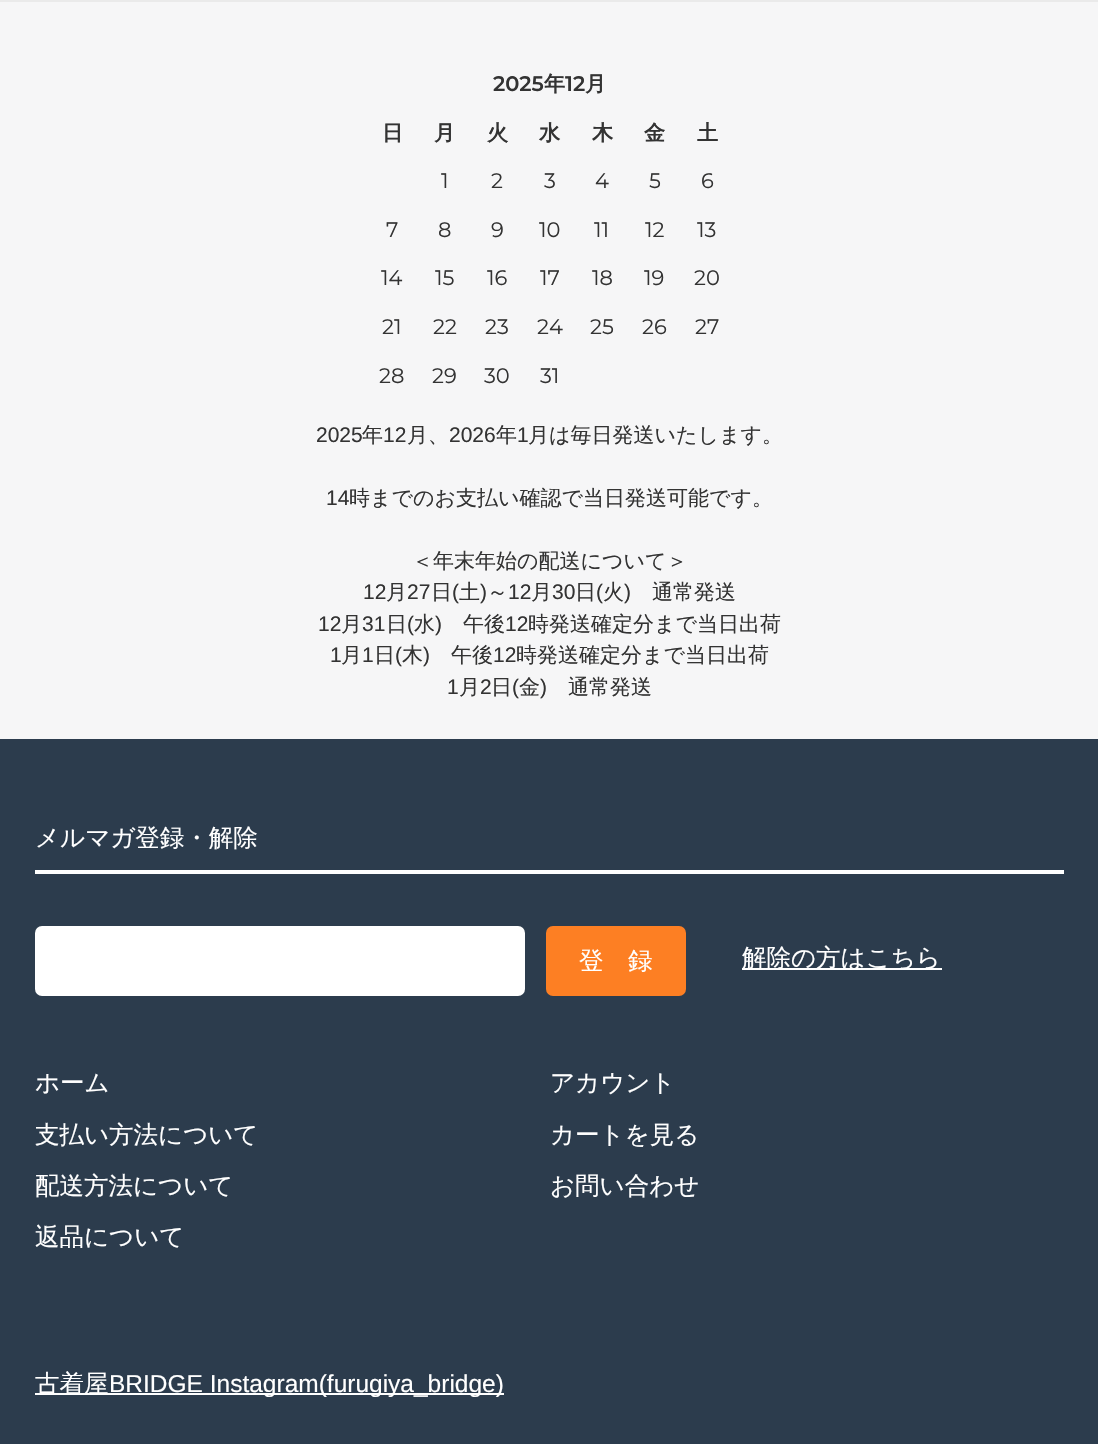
#include "include/core/SkBlurTypes.h"
#include "include/core/SkCanvas.h"
#include "include/core/SkData.h"
#include "include/core/SkFont.h"
#include "include/core/SkFontMgr.h"
#include "include/core/SkImage.h"
#include "include/core/SkMaskFilter.h"
#include "include/core/SkPaint.h"
#include "include/core/SkPathBuilder.h"
#include "include/core/SkTextBlob.h"
#include "include/effects/SkDashPathEffect.h"
#include "include/effects/SkGradientShader.h"
#include "include/utils/SkParsePath.h"

extern sk_sp<SkFontMgr> fontMgr;

void draw(SkCanvas* canvas) {
    SkPaint p;
    p.setAntiAlias(true);
    auto font = [&](const char* family, int weight, float size, bool italic = false) {
        SkFontStyle style(weight, SkFontStyle::kNormal_Width,
            italic ? SkFontStyle::kItalic_Slant : SkFontStyle::kUpright_Slant);
        SkFont result(fontMgr->matchFamilyStyle(family, style), size);
        result.setSubpixel(true);
        return result;
    };
    canvas->clear(0xFFF6F6F7);
    p.setColor(0xFFEAEAEA);
    canvas->drawRect(SkRect::MakeLTRB(0, 0, 1098, 2), p);
    auto font1 = font("Montserrat", 600, 21);
    p.setColor(0xFF333333);
    canvas->drawString("2025", 493, 91, font1, p);
    auto font2 = font("WenQuanYi Zen Hei", 700, 21);
    canvas->drawString("年", 544, 91, font2, p);
    canvas->drawString("12", 565, 91, font1, p);
    {
        const struct { const char* s; float x, y; } items[] = {
            {"月", 585, 91},
            {"日", 382, 140},
            {"月", 434, 140},
            {"火", 487, 140},
            {"水", 539, 140},
            {"木", 592, 140},
            {"金", 644, 140},
            {"土", 697, 140},
        };
        for (auto [s, x, y] : items) {
            canvas->drawString(s, x, y, font2, p);
        }
    }
    auto font3 = font("Montserrat", 400, 21);
    {
        const struct { const char* s; float x, y; } items[] = {
            {"1", 441, 188},
            {"2", 491, 188},
            {"3", 544, 188},
            {"4", 595, 188},
            {"5", 649, 188},
            {"6", 701, 188},
            {"7", 386, 237},
            {"8", 438, 237},
            {"9", 491, 237},
            {"10", 539, 237},
            {"11", 594, 237},
            {"12", 645, 237},
            {"13", 697, 237},
            {"14", 381, 285},
            {"15", 435, 285},
            {"16", 487, 285},
            {"17", 540, 285},
            {"18", 592, 285},
            {"19", 644, 285},
            {"20", 694, 285},
            {"21", 382, 334},
            {"22", 433, 334},
            {"23", 485, 334},
            {"24", 537, 334},
            {"25", 590, 334},
            {"26", 642, 334},
            {"27", 695, 334},
            {"28", 379, 383},
            {"29", 432, 383},
            {"30", 484, 383},
            {"31", 540, 383},
        };
        for (auto [s, x, y] : items) {
            canvas->drawString(s, x, y, font3, p);
        }
    }
    auto font4 = font("Liberation Sans", 400, 21);
    canvas->drawString("2025", 316, 442, font4, p);
    auto font5 = font("WenQuanYi Zen Hei", 500, 21);
    canvas->drawString("年", 362, 442, font5, p);
    canvas->drawString("12", 383, 442, font4, p);
    canvas->drawString("月、", 407, 442, font5, p);
    canvas->drawString("2026", 449, 442, font4, p);
    canvas->drawString("年", 496, 442, font5, p);
    canvas->drawString("1", 517, 442, font4, p);
    canvas->drawString("月は毎日発送いたします。", 528, 442, font5, p);
    canvas->drawString("14", 326, 505, font4, p);
    canvas->drawString("時までのお支払い確認で当日発送可能です。", 349, 505, font5, p);
    canvas->drawString("＜年末年始の配送について＞", 412, 568, font5, p);
    canvas->drawString("12", 363, 599, font4, p);
    canvas->drawString("月", 386, 599, font5, p);
    canvas->drawString("27", 407, 599, font4, p);
    canvas->drawString("日", 431, 599, font5, p);
    canvas->drawString("(", 452, 599, font4, p);
    canvas->drawString("土", 459, 599, font5, p);
    canvas->drawString(")", 480, 599, font4, p);
    canvas->drawString("～", 487, 599, font5, p);
    canvas->drawString("12", 508, 599, font4, p);
    canvas->drawString("月", 531, 599, font5, p);
    canvas->drawString("30", 552, 599, font4, p);
    canvas->drawString("日", 575, 599, font5, p);
    canvas->drawString("(", 596, 599, font4, p);
    canvas->drawString("火", 603, 599, font5, p);
    canvas->drawString(")", 624, 599, font4, p);
    canvas->drawString("通常発送", 652, 599, font5, p);
    canvas->drawString("12", 318, 631, font4, p);
    canvas->drawString("月", 341, 631, font5, p);
    canvas->drawString("31", 362, 631, font4, p);
    canvas->drawString("日", 386, 631, font5, p);
    canvas->drawString("(", 407, 631, font4, p);
    canvas->drawString("水", 414, 631, font5, p);
    canvas->drawString(")", 435, 631, font4, p);
    canvas->drawString("午後", 463, 631, font5, p);
    canvas->drawString("12", 505, 631, font4, p);
    canvas->drawString("時発送確定分まで当日出荷", 528, 631, font5, p);
    canvas->drawString("1", 330, 662, font4, p);
    canvas->drawString("月", 341, 662, font5, p);
    canvas->drawString("1", 362, 662, font4, p);
    canvas->drawString("日", 374, 662, font5, p);
    canvas->drawString("(", 395, 662, font4, p);
    canvas->drawString("木", 402, 662, font5, p);
    canvas->drawString(")", 423, 662, font4, p);
    canvas->drawString("午後", 451, 662, font5, p);
    canvas->drawString("12", 493, 662, font4, p);
    canvas->drawString("時発送確定分まで当日出荷", 516, 662, font5, p);
    canvas->drawString("1", 447, 694, font4, p);
    canvas->drawString("月", 459, 694, font5, p);
    canvas->drawString("2", 480, 694, font4, p);
    canvas->drawString("日", 491, 694, font5, p);
    canvas->drawString("(", 512, 694, font4, p);
    canvas->drawString("金", 519, 694, font5, p);
    canvas->drawString(")", 540, 694, font4, p);
    canvas->drawString("通常発送", 568, 694, font5, p);
    p.setColor(0xFF2C3C4D);
    canvas->drawRect(SkRect::MakeLTRB(0, 739, 1098, 1444), p);
    p.setColor(0xFFFFFFFF);
    canvas->drawRect(SkRect::MakeLTRB(35, 870, 1064, 874), p);
    auto font6 = font("WenQuanYi Zen Hei", 500, 24.5f);
    canvas->drawString("メルマガ登録・解除", 35, 846, font6, p);
    canvas->drawRoundRect(SkRect::MakeLTRB(35, 926, 525, 996), 7, 7, p);
    p.setColor(0xFFFD7F23);
    canvas->drawRoundRect(SkRect::MakeLTRB(546, 926, 686, 996), 7, 7, p);
    p.setColor(0xFFFFFFFF);
    canvas->drawString("登　録", 579, 969, font6, p);
    canvas->drawRect(SkRect::MakeLTRB(742, 968, 942, 970), p);
    {
        const struct { const char* s; float x, y; } items[] = {
            {"解除の方はこちら", 742, 966},
            {"ホーム", 35, 1091},
            {"支払い方法について", 35, 1143},
            {"配送方法について", 35, 1194},
            {"返品について", 35, 1245},
            {"アカウント", 550, 1091},
            {"カートを見る", 550, 1143},
            {"お問い合わせ", 550, 1194},
        };
        for (auto [s, x, y] : items) {
            canvas->drawString(s, x, y, font6, p);
        }
    }
    canvas->drawRect(SkRect::MakeLTRB(35, 1393, 504, 1395), p);
    canvas->drawString("古着屋", 35, 1392, font6, p);
    auto font7 = font("Liberation Sans", 400, 24.5f);
    canvas->drawString("BRIDGE Instagram(furugiya_bridge)", 109, 1392, font7, p);
}
